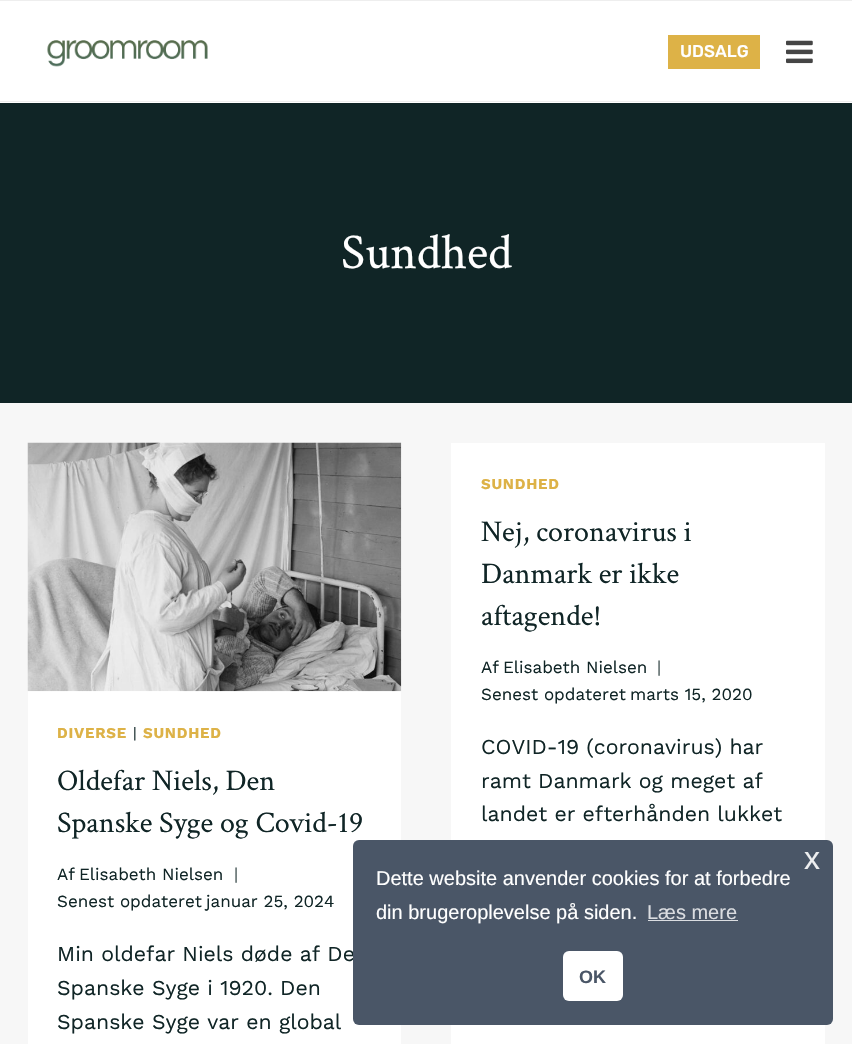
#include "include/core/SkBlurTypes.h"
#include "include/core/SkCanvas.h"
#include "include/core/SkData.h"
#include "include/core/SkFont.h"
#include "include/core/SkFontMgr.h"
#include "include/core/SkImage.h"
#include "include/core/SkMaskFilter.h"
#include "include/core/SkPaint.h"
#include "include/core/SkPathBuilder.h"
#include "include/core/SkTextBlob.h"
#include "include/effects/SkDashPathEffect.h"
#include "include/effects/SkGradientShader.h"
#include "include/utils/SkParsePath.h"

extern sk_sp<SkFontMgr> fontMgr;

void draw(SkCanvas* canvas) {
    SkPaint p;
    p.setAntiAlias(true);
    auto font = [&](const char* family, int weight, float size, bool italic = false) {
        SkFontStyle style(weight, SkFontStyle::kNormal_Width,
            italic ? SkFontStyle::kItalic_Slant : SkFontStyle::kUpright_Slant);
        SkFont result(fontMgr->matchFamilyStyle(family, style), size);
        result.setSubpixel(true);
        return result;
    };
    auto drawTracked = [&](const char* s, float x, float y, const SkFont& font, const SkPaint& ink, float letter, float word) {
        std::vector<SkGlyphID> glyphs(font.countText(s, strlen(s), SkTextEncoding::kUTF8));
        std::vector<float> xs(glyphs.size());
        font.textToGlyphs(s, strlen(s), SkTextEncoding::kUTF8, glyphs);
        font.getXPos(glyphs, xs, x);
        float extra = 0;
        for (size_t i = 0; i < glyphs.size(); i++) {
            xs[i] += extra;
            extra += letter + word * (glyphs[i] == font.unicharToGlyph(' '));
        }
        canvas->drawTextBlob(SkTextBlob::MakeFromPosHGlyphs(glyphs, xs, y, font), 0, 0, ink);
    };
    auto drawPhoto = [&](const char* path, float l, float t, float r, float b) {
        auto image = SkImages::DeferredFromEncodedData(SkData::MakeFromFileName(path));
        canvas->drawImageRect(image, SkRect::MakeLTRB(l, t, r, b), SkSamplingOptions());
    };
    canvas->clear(0xFFF7F7F7);
    {
        const struct { float l, t, r, b; SkColor color; } items[] = {
            {0, 1, 852, 103, 0xFFFFFFFF},
            {0, 0, 852, 1, 0xFFEEEEEE},
            {0, 101, 852, 102, 0xFFEEEEEE},
        };
        for (auto [l, t, r, b, color] : items) {
            p.setColor(color);
            canvas->drawRect(SkRect::MakeLTRB(l, t, r, b), p);
        }
    }
    drawPhoto("media/1.png", 47, 40, 208, 67);
    p.setColor(0xFFDDB247);
    canvas->drawRect(SkRect::MakeLTRB(668, 35, 760, 69), p);
    auto font1 = font("Rubik", 500, 17);
    p.setColor(0xFFFFFFFF);
    canvas->drawString("UDSALG", 680, 57, font1, p);
    drawPhoto("media/2.png", 786, 40, 813, 64);
    p.setColor(0xFF102526);
    canvas->drawRect(SkRect::MakeLTRB(0, 103, 852, 403), p);
    auto font2 = font("Crimson Text", 400, 50);
    p.setColor(0xFFFFFFFF);
    canvas->drawString("Sundhed", 341, 268, font2, p);
    canvas->drawRect(SkRect::MakeLTRB(451, 443, 825, 1044), p);
    auto font3 = font("Work Sans", 700, 15);
    p.setColor(0xFFDDB247);
    drawTracked("SUNDHED", 481, 489, font3, p, 0.75f, 0);
    auto font4 = font("Crimson Text", 400, 30);
    p.setColor(0xFF102526);
    {
        const struct { const char* s; float x, y; } items[] = {
            {"Nej, coronavirus i", 481, 541},
            {"Danmark er ikke", 481, 583},
            {"aftagende!", 481, 625},
        };
        for (auto [s, x, y] : items) {
            canvas->drawString(s, x, y, font4, p);
        }
    }
    auto font5 = font("Work Sans", 400, 17);
    canvas->drawString("Af", 481, 673, font5, p);
    canvas->drawString("Elisabeth Nielsen", 503, 673, font5, p);
    p.setColor(0xFF405151);
    canvas->drawString("|", 657, 673, font5, p);
    p.setColor(0xFF102526);
    canvas->drawString("Senest opdateret", 481, 700, font5, p);
    canvas->drawString("marts 15, 2020", 630, 700, font5, p);
    auto font6 = font("Work Sans", 400, 21.25f);
    {
        const struct { const char* s; float x, y; } items[] = {
            {"COVID-19 (coronavirus) har", 481, 754},
            {"ramt Danmark og meget af", 481, 788},
            {"landet er efterhånden lukket", 481, 821},
        };
        for (auto [s, x, y] : items) {
            canvas->drawString(s, x, y, font6, p);
        }
    }
    p.setColor(0xFFFFFFFF);
    canvas->drawRect(SkRect::MakeLTRB(28, 691, 401, 1044), p);
    drawPhoto("media/3.png", 27, 442, 402, 692);
    p.setColor(0xFFDDB247);
    drawTracked("DIVERSE", 57, 738, font3, p, 0.75f, 0);
    auto font7 = font("Work Sans", 400, 15);
    p.setColor(0xFF102526);
    drawTracked("|", 133, 738, font7, p, 0.75f, 0);
    p.setColor(0xFFDDB247);
    drawTracked("SUNDHED", 143, 738, font3, p, 0.75f, 0);
    p.setColor(0xFF102526);
    canvas->drawString("Oldefar Niels, Den", 57, 790, font4, p);
    canvas->drawString("Spanske Syge og Covid-19", 57, 832, font4, p);
    canvas->drawString("Af", 57, 880, font5, p);
    canvas->drawString("Elisabeth Nielsen", 79, 880, font5, p);
    p.setColor(0xFF405151);
    canvas->drawString("|", 234, 880, font5, p);
    p.setColor(0xFF102526);
    canvas->drawString("Senest opdateret", 57, 907, font5, p);
    canvas->drawString("januar 25, 2024", 206, 907, font5, p);
    {
        const struct { const char* s; float x, y; } items[] = {
            {"Min oldefar Niels døde af De", 57, 961},
            {"Spanske Syge i 1920. Den", 57, 995},
            {"Spanske Syge var en global", 57, 1029},
        };
        for (auto [s, x, y] : items) {
            canvas->drawString(s, x, y, font6, p);
        }
    }
    p.setColor(0xFF4A5667);
    canvas->drawRoundRect(SkRect::MakeLTRB(353, 840, 833, 1025), 6, 6, p);
    auto font8 = font("Liberation Sans", 400, 32);
    p.setColor(0xFFEDEEF0);
    canvas->drawString("x", 804, 869, font8, p);
    auto font9 = font("Liberation Sans", 400, 20);
    p.setColor(0xFFFFFFFF);
    canvas->drawString("Dette website anvender cookies for at forbedre", 376, 885, font9, p);
    canvas->drawString("din brugeroplevelse på siden.", 376, 919, font9, p);
    p.setColor(0xFFDBDDE1);
    canvas->drawString("Læs mere", 647, 919, font9, p);
    canvas->drawRect(SkRect::MakeLTRB(648, 920, 738, 921), p);
    p.setColor(0xFFFFFFFF);
    canvas->drawRoundRect(SkRect::MakeLTRB(563, 951, 623, 1001), 6, 6, p);
    auto font10 = font("Liberation Sans", 700, 18);
    p.setColor(0xFF4A5667);
    canvas->drawString("OK", 579, 983, font10, p);
}
